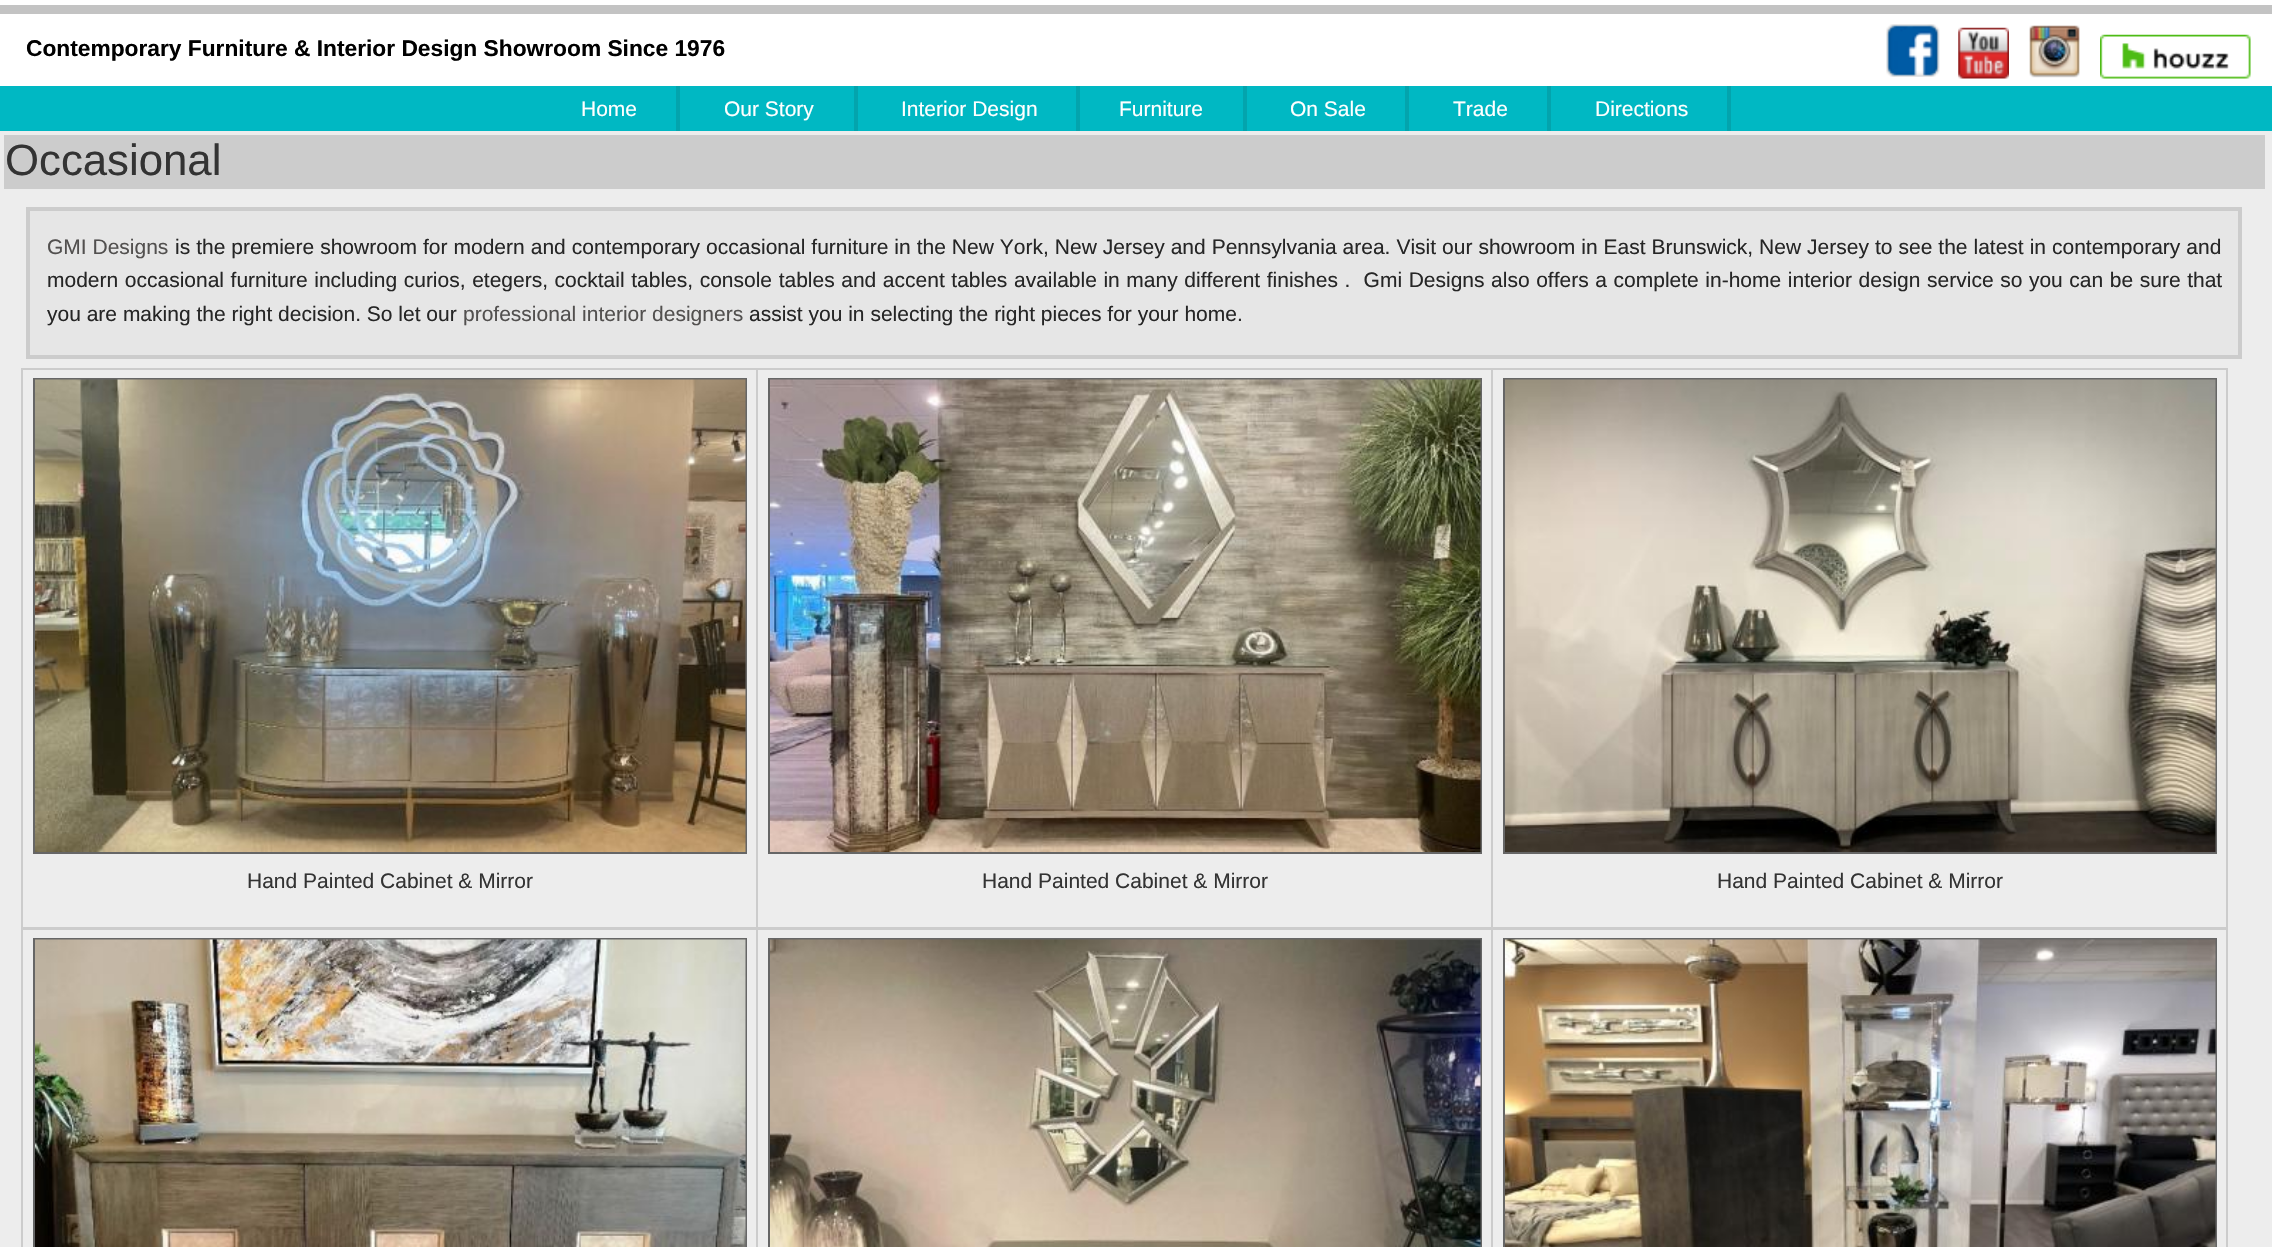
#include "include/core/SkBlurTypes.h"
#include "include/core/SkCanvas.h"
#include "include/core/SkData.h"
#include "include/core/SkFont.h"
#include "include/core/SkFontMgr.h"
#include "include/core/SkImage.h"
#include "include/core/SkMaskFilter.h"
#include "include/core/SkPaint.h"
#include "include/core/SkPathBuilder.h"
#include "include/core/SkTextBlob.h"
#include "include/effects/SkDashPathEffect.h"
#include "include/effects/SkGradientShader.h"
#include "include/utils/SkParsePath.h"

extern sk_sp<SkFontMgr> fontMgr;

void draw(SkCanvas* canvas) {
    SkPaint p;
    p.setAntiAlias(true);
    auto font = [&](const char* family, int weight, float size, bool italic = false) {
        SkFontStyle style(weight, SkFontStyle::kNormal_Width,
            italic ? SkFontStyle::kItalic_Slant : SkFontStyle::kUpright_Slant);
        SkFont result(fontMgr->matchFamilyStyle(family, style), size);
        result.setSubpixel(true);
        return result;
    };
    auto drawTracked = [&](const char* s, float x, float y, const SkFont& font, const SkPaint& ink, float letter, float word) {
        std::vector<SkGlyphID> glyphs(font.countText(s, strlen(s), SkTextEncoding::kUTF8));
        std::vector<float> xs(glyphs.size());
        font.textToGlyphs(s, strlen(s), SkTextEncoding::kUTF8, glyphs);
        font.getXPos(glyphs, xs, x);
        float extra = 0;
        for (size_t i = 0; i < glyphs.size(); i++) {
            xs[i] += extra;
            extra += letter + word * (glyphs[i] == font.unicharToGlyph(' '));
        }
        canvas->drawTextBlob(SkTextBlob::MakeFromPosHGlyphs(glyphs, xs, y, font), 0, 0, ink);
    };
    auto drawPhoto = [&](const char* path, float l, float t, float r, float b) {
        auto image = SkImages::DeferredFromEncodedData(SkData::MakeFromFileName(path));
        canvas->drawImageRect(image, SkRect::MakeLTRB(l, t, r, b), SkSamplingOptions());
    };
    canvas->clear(0xFFFFFFFF);
    p.setColor(0xFFC3C3C3);
    canvas->drawRect(SkRect::MakeLTRB(0, 5, 2272, 14), p);
    auto font1 = font("Liberation Sans", 700, 22.75f);
    p.setColor(0xFF000000);
    canvas->drawString("Contemporary Furniture & Interior Design Showroom Since 1976", 26, 56, font1, p);
    drawPhoto("media/1.png", 1886, 24, 1940, 77);
    drawPhoto("media/2.png", 1958, 27, 2009, 79);
    drawPhoto("media/3.png", 2029, 25, 2080, 78);
    drawPhoto("media/4.png", 2100, 34, 2251, 79);
    p.setColor(0xFF00B8C3);
    canvas->drawRect(SkRect::MakeLTRB(0, 86, 2272, 131), p);
    p.setColor(0xFF03A4AD);
    canvas->drawRect(SkRect::MakeLTRB(676, 86, 680, 131), p);
    auto font2 = font("Liberation Sans", 400, 21);
    p.setColor(0xFFFFFFFF);
    canvas->drawString("Home", 581, 116, font2, p);
    p.setColor(0xFF03A4AD);
    canvas->drawRect(SkRect::MakeLTRB(854, 86, 858, 131), p);
    p.setColor(0xFFFFFFFF);
    canvas->drawString("Our Story", 724, 116, font2, p);
    p.setColor(0xFF03A4AD);
    canvas->drawRect(SkRect::MakeLTRB(1076, 86, 1080, 131), p);
    p.setColor(0xFFFFFFFF);
    canvas->drawString("Interior Design", 901, 116, font2, p);
    p.setColor(0xFF03A4AD);
    canvas->drawRect(SkRect::MakeLTRB(1243, 86, 1247, 131), p);
    p.setColor(0xFFFFFFFF);
    canvas->drawString("Furniture", 1119, 116, font2, p);
    p.setColor(0xFF03A4AD);
    canvas->drawRect(SkRect::MakeLTRB(1405, 86, 1409, 131), p);
    p.setColor(0xFFFFFFFF);
    canvas->drawString("On Sale", 1290, 116, font2, p);
    p.setColor(0xFF03A4AD);
    canvas->drawRect(SkRect::MakeLTRB(1547, 86, 1551, 131), p);
    p.setColor(0xFFFFFFFF);
    canvas->drawString("Trade", 1453, 116, font2, p);
    p.setColor(0xFF03A4AD);
    canvas->drawRect(SkRect::MakeLTRB(1727, 86, 1731, 131), p);
    p.setColor(0xFFFFFFFF);
    canvas->drawString("Directions", 1595, 116, font2, p);
    p.setColor(0xFFEDEDED);
    canvas->drawRect(SkRect::MakeLTRB(0, 131, 2272, 1247), p);
    p.setColor(0xFFCCCCCC);
    canvas->drawRect(SkRect::MakeLTRB(4, 135, 2265, 189), p);
    auto font3 = font("Liberation Sans", 400, 43.75f);
    p.setColor(0xFF333333);
    canvas->drawString("Occasional", 5, 175, font3, p);
    p.setColor(0xFFE6E6E6);
    canvas->drawRect(SkRect::MakeLTRB(28, 209, 2240, 357), p);
    p.setStyle(SkPaint::kStroke_Style);
    p.setStrokeWidth(4);
    p.setColor(0xFFCCCCCC);
    canvas->drawRect(SkRect::MakeLTRB(28, 209, 2240, 357), p);
    p.setStyle(SkPaint::kFill_Style);
    p.setColor(0xFF52504F);
    canvas->drawString("GMI Designs", 47, 254, font2, p);
    p.setColor(0xFF262626);
    drawTracked("is the premiere showroom for modern and contemporary occasional furniture in the New York, New Jersey and Pennsylvania area. Visit our showroom in East Brunswick, New Jersey to see the latest in contemporary and", 175, 254, font2, p, 0, 0.15f);
    drawTracked("modern occasional furniture including curios, etegers, cocktail tables, console tables and accent tables available in many different finishes .  Gmi Designs also offers a complete in-home interior design service so you can be sure that", 47, 287, font2, p, 0, 0.75f);
    canvas->drawString("you are making the right decision. So let our", 47, 321, font2, p);
    p.setColor(0xFF52504F);
    canvas->drawString("professional interior designers", 463, 321, font2, p);
    p.setColor(0xFF262626);
    canvas->drawString("assist you in selecting the right pieces for your home.", 749, 321, font2, p);
    p.setStyle(SkPaint::kStroke_Style);
    p.setStrokeWidth(2);
    p.setColor(0xFFCCCCCC);
    canvas->drawRect(SkRect::MakeLTRB(22, 369, 757, 928), p);
    p.setColor(0xFF666666);
    canvas->drawRect(SkRect::MakeLTRB(34, 379, 746, 853), p);
    drawPhoto("media/5.png", 35, 379, 746, 852);
    p.setStyle(SkPaint::kFill_Style);
    p.setColor(0xFF333333);
    canvas->drawString("Hand Painted Cabinet & Mirror", 247, 888, font2, p);
    p.setStyle(SkPaint::kStroke_Style);
    p.setColor(0xFFCCCCCC);
    canvas->drawRect(SkRect::MakeLTRB(757, 369, 1492, 928), p);
    p.setColor(0xFF666666);
    canvas->drawRect(SkRect::MakeLTRB(769, 379, 1481, 853), p);
    drawPhoto("media/6.png", 770, 379, 1481, 852);
    p.setStyle(SkPaint::kFill_Style);
    p.setColor(0xFF333333);
    canvas->drawString("Hand Painted Cabinet & Mirror", 982, 888, font2, p);
    p.setStyle(SkPaint::kStroke_Style);
    p.setColor(0xFFCCCCCC);
    canvas->drawRect(SkRect::MakeLTRB(1492, 369, 2227, 928), p);
    p.setColor(0xFF666666);
    canvas->drawRect(SkRect::MakeLTRB(1504, 379, 2216, 853), p);
    drawPhoto("media/7.png", 1505, 379, 2216, 852);
    p.setStyle(SkPaint::kFill_Style);
    p.setColor(0xFF333333);
    canvas->drawString("Hand Painted Cabinet & Mirror", 1717, 888, font2, p);
    p.setStyle(SkPaint::kStroke_Style);
    p.setColor(0xFFCCCCCC);
    canvas->drawRect(SkRect::MakeLTRB(22, 929, 757, 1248), p);
    p.setColor(0xFF666666);
    canvas->drawRect(SkRect::MakeLTRB(34, 939, 746, 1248), p);
    drawPhoto("media/8.png", 35, 939, 746, 1247);
    p.setColor(0xFFCCCCCC);
    canvas->drawRect(SkRect::MakeLTRB(757, 929, 1492, 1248), p);
    p.setColor(0xFF666666);
    canvas->drawRect(SkRect::MakeLTRB(769, 939, 1481, 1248), p);
    drawPhoto("media/9.png", 770, 939, 1481, 1247);
    p.setColor(0xFFCCCCCC);
    canvas->drawRect(SkRect::MakeLTRB(1492, 929, 2227, 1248), p);
    p.setColor(0xFF666666);
    canvas->drawRect(SkRect::MakeLTRB(1504, 939, 2216, 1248), p);
    drawPhoto("media/10.png", 1505, 939, 2216, 1247);
}
